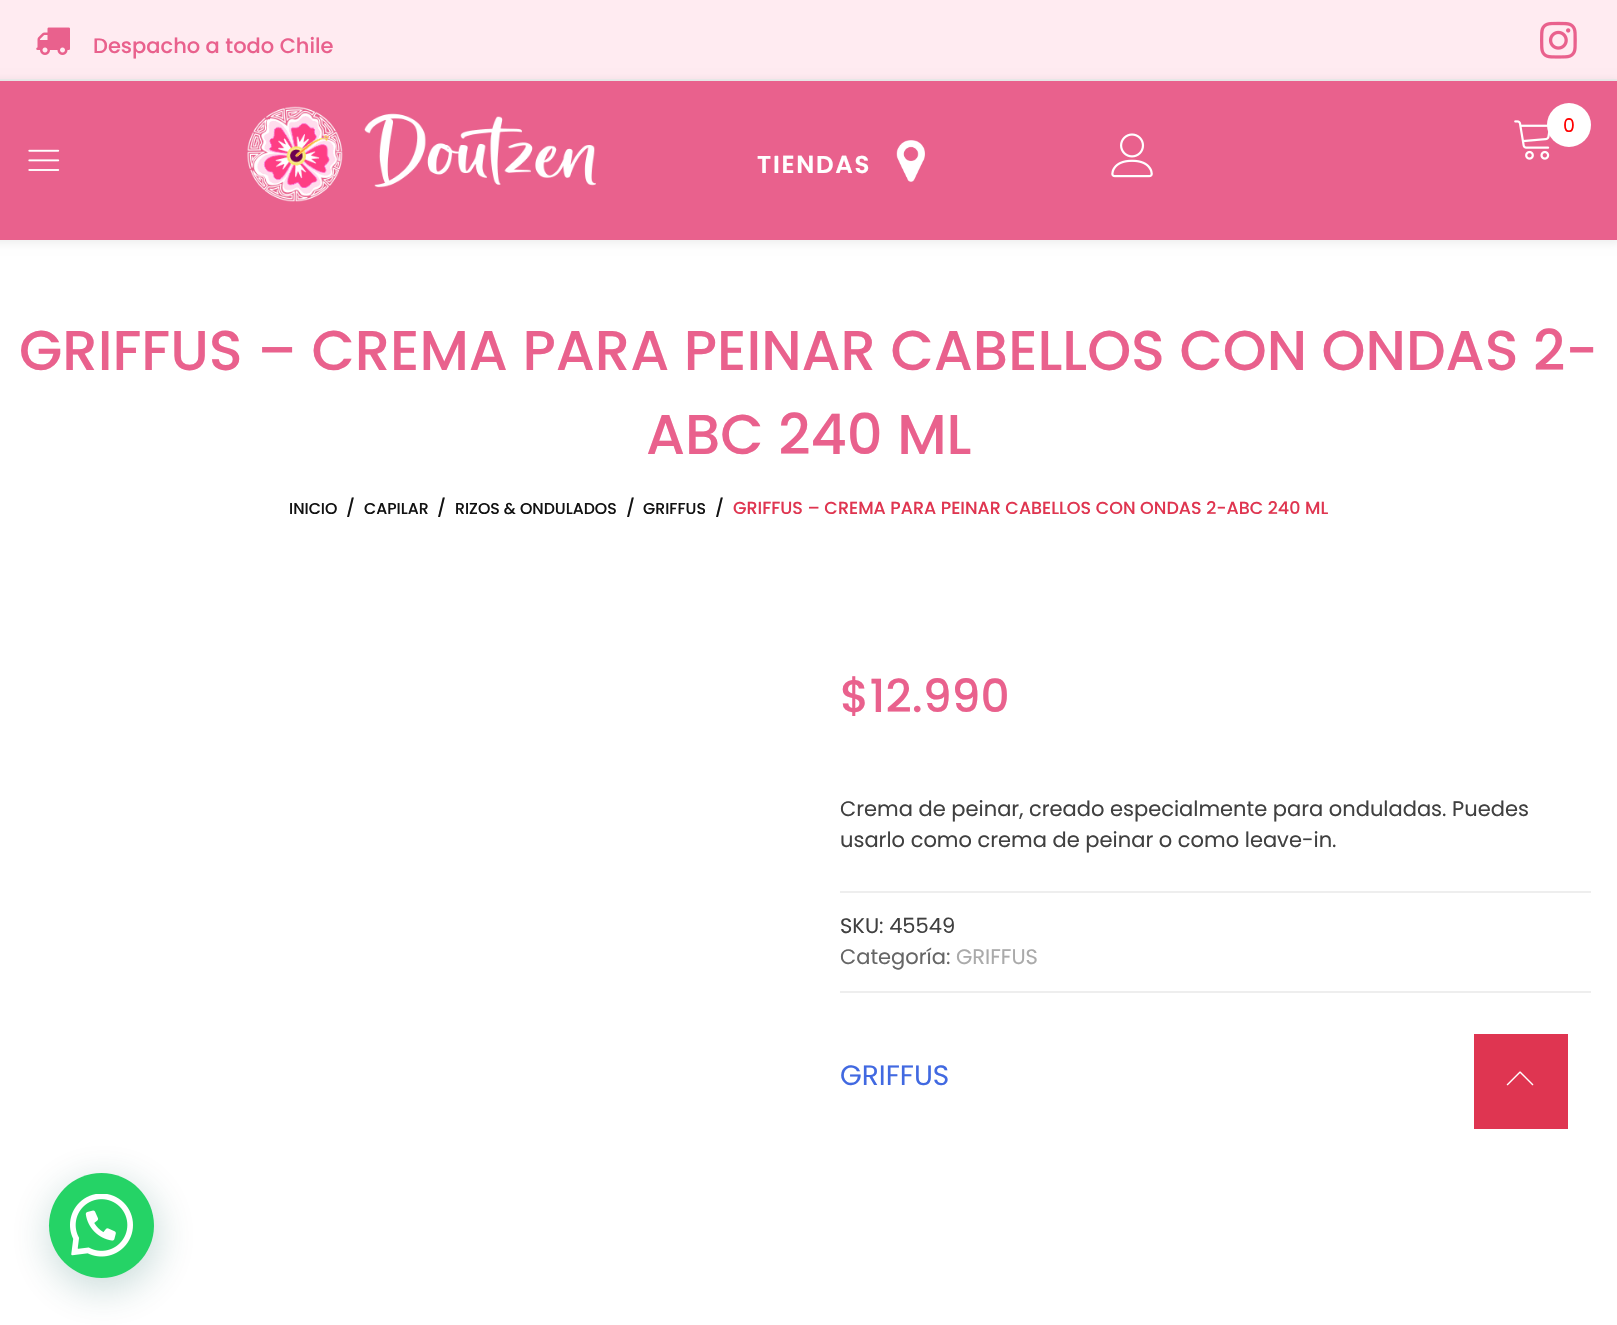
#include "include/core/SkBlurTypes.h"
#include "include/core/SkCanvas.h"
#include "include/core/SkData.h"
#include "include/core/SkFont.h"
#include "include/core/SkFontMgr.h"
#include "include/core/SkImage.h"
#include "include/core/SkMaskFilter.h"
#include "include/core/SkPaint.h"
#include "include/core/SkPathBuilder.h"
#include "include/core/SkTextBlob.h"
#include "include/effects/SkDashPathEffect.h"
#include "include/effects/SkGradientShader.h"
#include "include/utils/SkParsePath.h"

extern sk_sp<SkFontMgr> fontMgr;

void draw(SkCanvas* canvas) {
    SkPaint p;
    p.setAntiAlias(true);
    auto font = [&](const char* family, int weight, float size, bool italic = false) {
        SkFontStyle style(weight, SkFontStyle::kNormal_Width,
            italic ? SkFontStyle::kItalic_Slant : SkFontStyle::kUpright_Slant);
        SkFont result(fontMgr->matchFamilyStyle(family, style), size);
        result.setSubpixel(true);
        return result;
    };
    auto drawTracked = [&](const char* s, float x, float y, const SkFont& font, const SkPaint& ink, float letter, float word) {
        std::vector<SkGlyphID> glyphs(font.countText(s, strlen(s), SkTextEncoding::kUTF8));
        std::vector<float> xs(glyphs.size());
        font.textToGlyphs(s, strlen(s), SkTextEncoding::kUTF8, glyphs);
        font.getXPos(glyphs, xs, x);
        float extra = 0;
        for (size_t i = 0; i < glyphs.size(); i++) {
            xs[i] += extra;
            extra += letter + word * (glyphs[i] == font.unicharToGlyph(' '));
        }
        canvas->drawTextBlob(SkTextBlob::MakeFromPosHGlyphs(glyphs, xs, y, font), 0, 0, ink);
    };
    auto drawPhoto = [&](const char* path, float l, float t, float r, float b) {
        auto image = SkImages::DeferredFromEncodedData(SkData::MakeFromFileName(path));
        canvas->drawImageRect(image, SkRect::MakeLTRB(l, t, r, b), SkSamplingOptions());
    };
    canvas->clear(0xFFFFFFFF);
    p.setColor(0xFFFFEBF1);
    canvas->drawRect(SkRect::MakeLTRB(0, 0, 1617, 79), p);
    p.setColor(0xFFEEEEEE);
    canvas->drawRect(SkRect::MakeLTRB(0, 79, 1617, 81), p);
    drawPhoto("media/1.png", 36, 27, 70, 55);
    auto font1 = font("Poppins", 500, 21);
    p.setColor(0xFFE9618D);
    canvas->drawString("Despacho a todo Chile", 93, 53, font1, p);
    drawPhoto("media/2.png", 1540, 21, 1577, 59);
    p.setColor(0x12000000);
    p.setMaskFilter(SkMaskFilter::MakeBlur(kNormal_SkBlurStyle, 4.5f));
    canvas->drawRect(SkRect::MakeLTRB(-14, 81, 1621, 243), p);
    p.setMaskFilter(nullptr);
    p.setColor(0xFFE9618D);
    canvas->drawRect(SkRect::MakeLTRB(0, 81, 1617, 240), p);
    drawPhoto("media/3.png", 247, 106, 596, 202);
    drawPhoto("media/4.png", 1514, 120, 1550, 160);
    p.setColor(0xFFFFFFFF);
    canvas->drawCircle(1569, 125, 22, p);
    auto font2 = font("Poppins", 400, 19);
    p.setColor(0xFFFF0000);
    canvas->drawString("0", 1563, 132, font2, p);
    drawPhoto("media/5.png", 28, 149, 60, 171);
    auto font3 = font("Poppins", 600, 24.5f);
    p.setColor(0xFFFFFFFF);
    drawTracked("TIENDAS", 757, 173, font3, p, 1.75f, 0);
    drawPhoto("media/6.png", 896, 140, 925, 182);
    drawPhoto("media/7.png", 1111, 133, 1153, 178);
    auto font4 = font("Poppins", 500, 56);
    p.setColor(0xFFE9618D);
    canvas->drawString("GRIFFUS – CREMA PARA PEINAR CABELLOS CON ONDAS 2-", 19, 370, font4, p);
    canvas->drawString("ABC 240 ML", 646, 454, font4, p);
    auto font5 = font("Poppins", 500, 15.75f);
    p.setColor(0xFF121212);
    canvas->drawString("INICIO", 289, 514, font5, p);
    auto font6 = font("Poppins", 500, 17.5f);
    canvas->drawString("/", 346, 514, font6, p);
    canvas->drawString("CAPILAR", 364, 514, font5, p);
    canvas->drawString("/", 437, 514, font6, p);
    canvas->drawString("RIZOS & ONDULADOS", 455, 514, font5, p);
    canvas->drawString("/", 626, 514, font6, p);
    canvas->drawString("GRIFFUS", 643, 514, font5, p);
    canvas->drawString("/", 715, 514, font6, p);
    p.setColor(0xFFDF3550);
    canvas->drawString("GRIFFUS – CREMA PARA PEINAR CABELLOS CON ONDAS 2-ABC 240 ML", 733, 514, font6, p);
    auto font7 = font("Poppins", 500, 45.5f);
    p.setColor(0xFFE9618D);
    canvas->drawString("$12.990", 840, 712, font7, p);
    auto font8 = font("Poppins", 400, 21);
    p.setColor(0xFF404040);
    canvas->drawString("Crema de peinar, creado especialmente para onduladas. Puedes", 840, 816, font8, p);
    canvas->drawString("usarlo como crema de peinar o como leave-in.", 840, 847, font8, p);
    p.setColor(0xFFEEEEEE);
    canvas->drawRect(SkRect::MakeLTRB(840, 891, 1591, 893), p);
    canvas->drawRect(SkRect::MakeLTRB(840, 991, 1591, 993), p);
    p.setColor(0xFF404040);
    canvas->drawString("SKU: 45549", 840, 933, font8, p);
    p.setColor(0xFF666666);
    canvas->drawString("Categoría:", 840, 964, font8, p);
    p.setColor(0xFFAAAAAA);
    canvas->drawString("GRIFFUS", 956, 964, font8, p);
    auto font9 = font("Poppins", 400, 28);
    p.setColor(0xFF4169E1);
    canvas->drawString("GRIFFUS", 840, 1085, font9, p);
    p.setColor(0xFFDF3551);
    canvas->drawRect(SkRect::MakeLTRB(1474, 1034, 1568, 1129), p);
    drawPhoto("media/8.png", 1506, 1071, 1534, 1086);
    p.setColor(0x3D075E54);
    p.setMaskFilter(SkMaskFilter::MakeBlur(kNormal_SkBlurStyle, 21));
    canvas->drawRoundRect(SkRect::MakeLTRB(51, 1183, 156, 1288), 52.5f, 52.5f, p);
    p.setMaskFilter(nullptr);
    p.setColor(0xFF25D366);
    canvas->drawCircle(101.5f, 1225.5f, 52.5f, p);
    drawPhoto("media/9.png", 70, 1194, 133, 1257);
}
